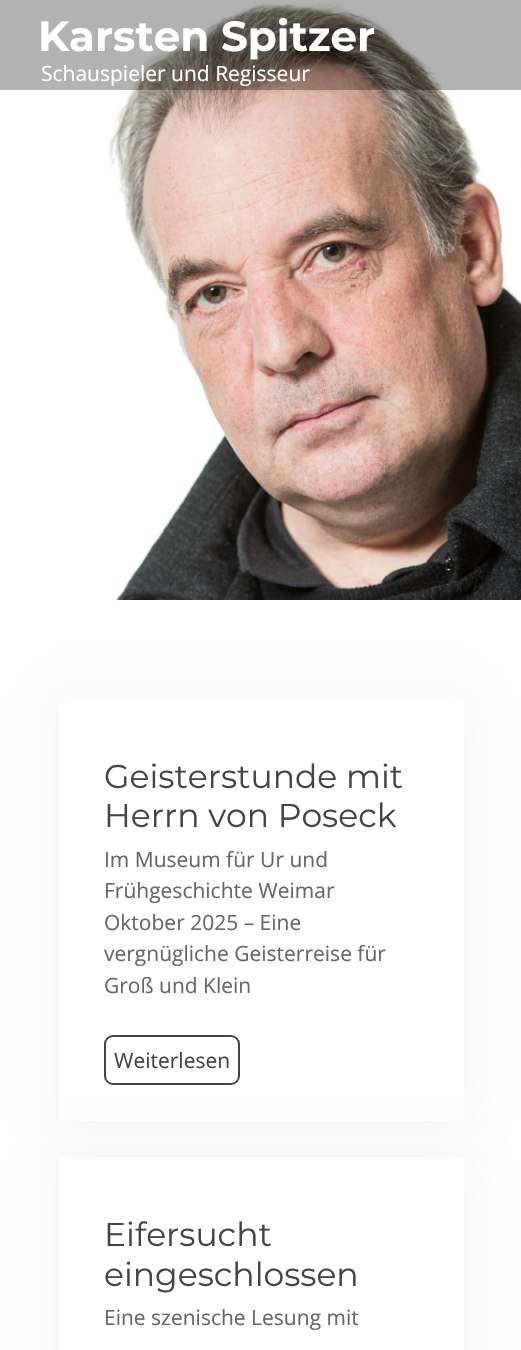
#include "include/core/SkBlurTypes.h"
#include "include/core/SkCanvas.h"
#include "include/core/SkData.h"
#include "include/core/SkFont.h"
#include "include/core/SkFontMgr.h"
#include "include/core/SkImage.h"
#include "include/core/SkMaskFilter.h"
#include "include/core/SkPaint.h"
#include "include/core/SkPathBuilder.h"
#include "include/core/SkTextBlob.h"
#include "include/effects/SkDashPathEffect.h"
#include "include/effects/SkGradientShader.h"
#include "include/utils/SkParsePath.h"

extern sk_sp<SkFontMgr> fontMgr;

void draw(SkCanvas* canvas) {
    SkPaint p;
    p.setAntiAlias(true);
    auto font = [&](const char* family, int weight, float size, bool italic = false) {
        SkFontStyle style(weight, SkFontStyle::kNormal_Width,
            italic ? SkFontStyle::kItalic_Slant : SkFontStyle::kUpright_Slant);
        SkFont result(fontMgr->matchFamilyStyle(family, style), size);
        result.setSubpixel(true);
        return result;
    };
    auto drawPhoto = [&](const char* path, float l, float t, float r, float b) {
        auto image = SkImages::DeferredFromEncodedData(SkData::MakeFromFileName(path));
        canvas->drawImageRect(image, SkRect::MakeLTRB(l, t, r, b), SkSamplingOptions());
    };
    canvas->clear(0xFFFFFFFF);
    drawPhoto("media/1.png", 108, 2, 521, 600);
    p.setColor(0x4D000000);
    canvas->drawRect(SkRect::MakeLTRB(0, 0, 521, 90), p);
    auto font1 = font("Montserrat", 700, 42);
    p.setColor(0xFFFFFFFF);
    canvas->drawString("Karsten Spitzer", 38, 51, font1, p);
    auto font2 = font("Open Sans", 400, 21);
    canvas->drawString("Schauspieler und Regisseur", 41, 81, font2, p);
    p.setColor(0x0D000000);
    p.setMaskFilter(SkMaskFilter::MakeBlur(kNormal_SkBlurStyle, 19));
    canvas->drawRect(SkRect::MakeLTRB(59, 699, 464, 1122), p);
    p.setMaskFilter(nullptr);
    p.setColor(0xFFFFFFFF);
    canvas->drawRect(SkRect::MakeLTRB(59, 698, 464, 1121), p);
    auto font3 = font("Montserrat", 400, 33);
    p.setColor(0xFF444444);
    canvas->drawString("Geisterstunde mit", 104, 788, font3, p);
    canvas->drawString("Herrn von Poseck", 104, 827, font3, p);
    p.setColor(0xFF666666);
    {
        const struct { const char* s; float x, y; } items[] = {
            {"Im Museum für Ur und", 104, 867},
            {"Frühgeschichte Weimar", 104, 898},
            {"Oktober 2025 – Eine", 104, 930},
            {"vergnügliche Geisterreise für", 104, 961},
            {"Groß und Klein", 104, 993},
        };
        for (auto [s, x, y] : items) {
            canvas->drawString(s, x, y, font2, p);
        }
    }
    p.setStyle(SkPaint::kStroke_Style);
    p.setStrokeWidth(2);
    p.setColor(0xFF444444);
    canvas->drawRoundRect(SkRect::MakeLTRB(105, 1036, 239, 1084), 8, 8, p);
    p.setStyle(SkPaint::kFill_Style);
    canvas->drawString("Weiterlesen", 114, 1068, font2, p);
    p.setColor(0x0D000000);
    p.setMaskFilter(SkMaskFilter::MakeBlur(kNormal_SkBlurStyle, 19));
    canvas->drawRect(SkRect::MakeLTRB(59, 1158, 464, 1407), p);
    p.setMaskFilter(nullptr);
    p.setColor(0xFFFFFFFF);
    canvas->drawRect(SkRect::MakeLTRB(59, 1157, 464, 1350), p);
    p.setColor(0xFF444444);
    canvas->drawString("Eifersucht", 104, 1246, font3, p);
    canvas->drawString("eingeschlossen", 104, 1286, font3, p);
    p.setColor(0xFF666666);
    canvas->drawString("Eine szenische Lesung mit", 104, 1325, font2, p);
}
